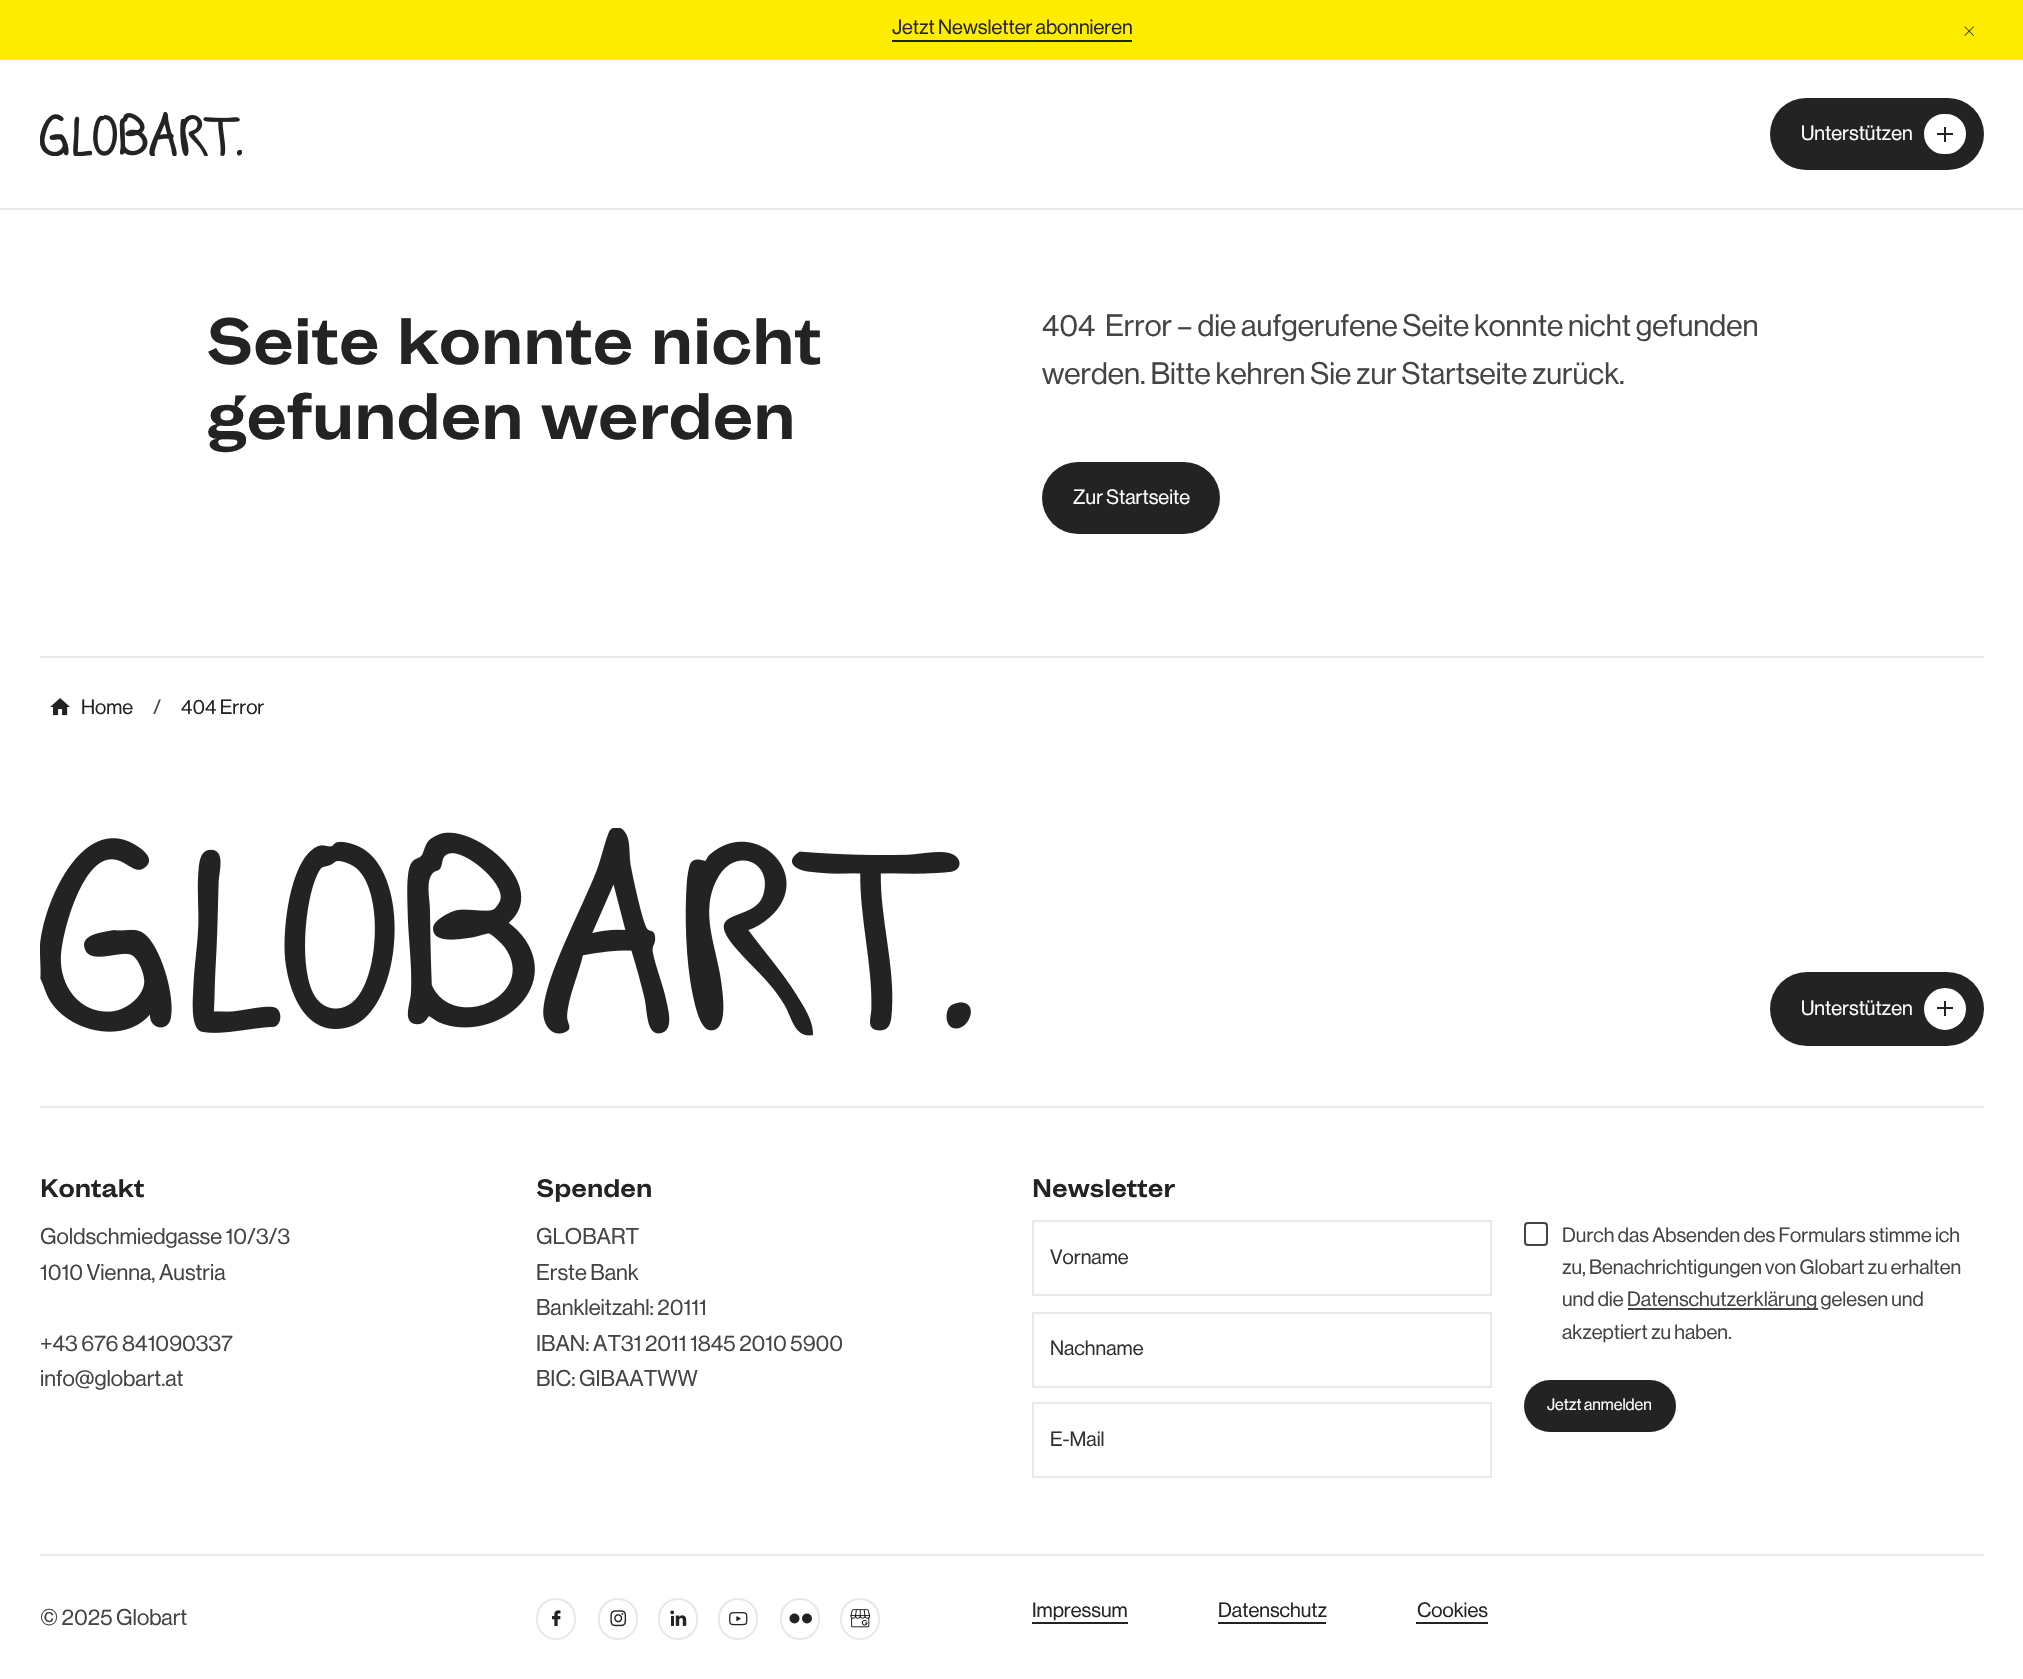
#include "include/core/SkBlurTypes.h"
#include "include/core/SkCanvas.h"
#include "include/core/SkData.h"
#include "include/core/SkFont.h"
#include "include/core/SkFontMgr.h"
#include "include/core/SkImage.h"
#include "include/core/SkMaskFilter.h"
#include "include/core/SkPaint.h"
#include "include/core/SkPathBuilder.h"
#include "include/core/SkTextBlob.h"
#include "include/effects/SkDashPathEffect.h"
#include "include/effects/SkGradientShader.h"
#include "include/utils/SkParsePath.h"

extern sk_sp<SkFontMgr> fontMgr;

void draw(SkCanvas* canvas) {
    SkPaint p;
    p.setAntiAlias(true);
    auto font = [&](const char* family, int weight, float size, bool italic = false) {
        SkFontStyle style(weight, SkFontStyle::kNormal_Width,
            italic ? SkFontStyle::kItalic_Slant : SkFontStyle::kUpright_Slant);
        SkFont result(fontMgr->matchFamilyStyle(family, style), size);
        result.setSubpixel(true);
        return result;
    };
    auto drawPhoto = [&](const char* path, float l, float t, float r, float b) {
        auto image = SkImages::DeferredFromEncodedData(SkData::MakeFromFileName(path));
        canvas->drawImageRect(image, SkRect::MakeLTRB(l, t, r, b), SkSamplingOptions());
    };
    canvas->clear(0xFFFFFFFF);
    p.setColor(0xFFFFED00);
    canvas->drawRect(SkRect::MakeLTRB(0, 0, 2023, 60), p);
    auto font1 = font("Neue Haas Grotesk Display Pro", 400, 20.25f);
    p.setColor(0xFF232323);
    canvas->drawString("Jetzt Newsletter abonnieren", 892, 34, font1, p);
    canvas->drawRect(SkRect::MakeLTRB(892, 40, 1132, 42), p);
    drawPhoto("media/1.png", 1964, 26, 1974, 36);
    p.setColor(0xFFE6E8EE);
    canvas->drawRect(SkRect::MakeLTRB(0, 208, 2023, 210), p);
    drawPhoto("media/2.png", 40, 112, 242, 156);
    p.setColor(0xFF232323);
    canvas->drawRoundRect(SkRect::MakeLTRB(1770, 98, 1984, 170), 36, 36, p);
    p.setColor(0xFFFFFFFF);
    canvas->drawString("Unterstützen", 1801, 140, font1, p);
    canvas->drawRoundRect(SkRect::MakeLTRB(1925, 115, 1965, 153), 19, 19, p);
    p.setStyle(SkPaint::kStroke_Style);
    p.setStrokeWidth(2);
    canvas->drawRoundRect(SkRect::MakeLTRB(1925, 115, 1965, 153), 19, 19, p);
    p.setStyle(SkPaint::kFill_Style);
    p.setColor(0xFF232323);
    canvas->drawRect(SkRect::MakeLTRB(1937, 133, 1953, 135), p);
    canvas->drawRect(SkRect::MakeLTRB(1944, 127, 1946, 142), p);
    auto font2 = font("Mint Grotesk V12", 700, 62.75f);
    canvas->drawString("Seite konnte nicht", 206, 364, font2, p);
    canvas->drawString("gefunden werden", 206, 439, font2, p);
    auto font3 = font("Neue Haas Grotesk Display Pro", 400, 30.4f);
    p.setColor(0xFF444444);
    canvas->drawString("404  Error – die aufgerufene Seite konnte nicht gefunden", 1042, 336, font3, p);
    canvas->drawString("werden. Bitte kehren Sie zur Startseite zurück.", 1042, 384, font3, p);
    p.setColor(0xFF232323);
    canvas->drawRoundRect(SkRect::MakeLTRB(1042, 462, 1220, 534), 36, 36, p);
    p.setColor(0xFFFFFFFF);
    canvas->drawString("Zur Startseite", 1073, 504, font1, p);
    p.setColor(0xFFE6E8EE);
    canvas->drawRect(SkRect::MakeLTRB(40, 656, 1984, 658), p);
    drawPhoto("media/3.png", 50, 698, 70, 716);
    p.setColor(0xFF232323);
    canvas->drawString("Home", 81, 714, font1, p);
    p.setColor(0xFF444444);
    canvas->drawString("/", 153, 714, font1, p);
    p.setColor(0xFF232323);
    canvas->drawString("404 Error", 181, 714, font1, p);
    drawPhoto("media/4.png", 40, 828, 971, 1036);
    canvas->drawRoundRect(SkRect::MakeLTRB(1770, 972, 1984, 1046), 37, 37, p);
    p.setColor(0xFFFFFFFF);
    canvas->drawString("Unterstützen", 1801, 1015, font1, p);
    canvas->drawCircle(1945, 1009, 20, p);
    p.setStyle(SkPaint::kStroke_Style);
    canvas->drawCircle(1945, 1009, 20, p);
    p.setStyle(SkPaint::kFill_Style);
    {
        const struct { float l, t, r, b; SkColor color; } items[] = {
            {1937, 1007, 1953, 1009, 0xFF232323},
            {1944, 1001, 1946, 1016, 0xFF232323},
            {40, 1106, 1984, 1108, 0xFFE6E8EE},
        };
        for (auto [l, t, r, b, color] : items) {
            p.setColor(color);
            canvas->drawRect(SkRect::MakeLTRB(l, t, r, b), p);
        }
    }
    auto font4 = font("Mint Grotesk V12", 700, 24.25f);
    p.setColor(0xFF232323);
    canvas->drawString("Kontakt", 40, 1197, font4, p);
    auto font5 = font("Neue Haas Grotesk Display Pro", 400, 22.25f);
    p.setColor(0xFF444444);
    {
        const struct { const char* s; float x, y; } items[] = {
            {"Goldschmiedgasse 10/3/3", 40, 1244},
            {"1010 Vienna, Austria", 40, 1280},
            {"+43 676 841090337", 40, 1351},
            {"info@globart.at", 40, 1386},
        };
        for (auto [s, x, y] : items) {
            canvas->drawString(s, x, y, font5, p);
        }
    }
    p.setColor(0xFF232323);
    canvas->drawString("Spenden", 536, 1197, font4, p);
    p.setColor(0xFF444444);
    {
        const struct { const char* s; float x, y; } items[] = {
            {"GLOBART", 536, 1244},
            {"Erste Bank", 536, 1280},
            {"Bankleitzahl: 20111", 536, 1315},
            {"IBAN: AT31 2011 1845 2010 5900", 536, 1351},
            {"BIC: GIBAATWW", 536, 1386},
        };
        for (auto [s, x, y] : items) {
            canvas->drawString(s, x, y, font5, p);
        }
    }
    p.setColor(0xFF232323);
    canvas->drawString("Newsletter", 1032, 1197, font4, p);
    p.setStyle(SkPaint::kStroke_Style);
    p.setColor(0xFFE6E8EE);
    canvas->drawRect(SkRect::MakeLTRB(1033, 1221, 1491, 1295), p);
    p.setStyle(SkPaint::kFill_Style);
    p.setColor(0xFF313131);
    canvas->drawString("Vorname", 1050, 1264, font1, p);
    p.setStyle(SkPaint::kStroke_Style);
    p.setColor(0xFFE6E8EE);
    canvas->drawRect(SkRect::MakeLTRB(1033, 1313, 1491, 1387), p);
    p.setStyle(SkPaint::kFill_Style);
    p.setColor(0xFF313131);
    canvas->drawString("Nachname", 1050, 1355, font1, p);
    p.setStyle(SkPaint::kStroke_Style);
    p.setColor(0xFFE6E8EE);
    canvas->drawRect(SkRect::MakeLTRB(1033, 1403, 1491, 1477), p);
    p.setStyle(SkPaint::kFill_Style);
    p.setColor(0xFF313131);
    canvas->drawString("E-Mail", 1050, 1446, font1, p);
    p.setStyle(SkPaint::kStroke_Style);
    p.setColor(0xFF444444);
    canvas->drawRoundRect(SkRect::MakeLTRB(1525, 1223, 1547, 1245), 3, 3, p);
    p.setStyle(SkPaint::kFill_Style);
    {
        const struct { const char* s; float x, y; } items[] = {
            {"Durch das Absenden des Formulars stimme ich", 1562, 1242},
            {"zu, Benachrichtigungen von Globart zu erhalten", 1562, 1274},
            {"und die", 1562, 1306},
        };
        for (auto [s, x, y] : items) {
            canvas->drawString(s, x, y, font1, p);
        }
    }
    canvas->drawRect(SkRect::MakeLTRB(1628, 1308, 1818, 1310), p);
    canvas->drawString("Datenschutzerklärung gelesen und", 1627, 1306, font1, p);
    canvas->drawString("akzeptiert zu haben.", 1562, 1339, font1, p);
    p.setColor(0xFF232323);
    canvas->drawRoundRect(SkRect::MakeLTRB(1524, 1380, 1676, 1432), 26, 26, p);
    auto font6 = font("Neue Haas Grotesk Display Pro", 400, 16.25f);
    p.setColor(0xFFFFFFFF);
    canvas->drawString("Jetzt anmelden", 1547, 1410, font6, p);
    p.setColor(0xFFE6E8EE);
    canvas->drawRect(SkRect::MakeLTRB(40, 1554, 1984, 1556), p);
    p.setColor(0xFF444444);
    canvas->drawString("© 2025 Globart", 40, 1625, font5, p);
    p.setStyle(SkPaint::kStroke_Style);
    p.setColor(0xFFE6E8EE);
    canvas->drawRoundRect(SkRect::MakeLTRB(537, 1599, 575, 1639), 19, 19, p);
    drawPhoto("media/5.png", 552, 1610, 561, 1627);
    canvas->drawRoundRect(SkRect::MakeLTRB(599, 1599, 637, 1639), 19, 19, p);
    drawPhoto("media/6.png", 610, 1610, 627, 1627);
    canvas->drawRoundRect(SkRect::MakeLTRB(659, 1599, 697, 1639), 19, 19, p);
    drawPhoto("media/7.png", 670, 1610, 687, 1626);
    canvas->drawRoundRect(SkRect::MakeLTRB(719, 1599, 757, 1639), 19, 19, p);
    drawPhoto("media/8.png", 729, 1612, 748, 1626);
    canvas->drawRoundRect(SkRect::MakeLTRB(781, 1599, 819, 1639), 19, 19, p);
    p.setStyle(SkPaint::kFill_Style);
    p.setColor(0xFF232323);
    canvas->drawCircle(794.5f, 1618.5f, 5, p);
    canvas->drawCircle(807, 1618.5f, 5, p);
    p.setStyle(SkPaint::kStroke_Style);
    p.setColor(0xFFE6E8EE);
    canvas->drawRoundRect(SkRect::MakeLTRB(841, 1599, 879, 1639), 19, 19, p);
    drawPhoto("media/9.png", 850, 1609, 871, 1628);
    p.setStyle(SkPaint::kFill_Style);
    p.setColor(0xFF232323);
    canvas->drawString("Impressum", 1032, 1617, font1, p);
    canvas->drawRect(SkRect::MakeLTRB(1032, 1622, 1128, 1624), p);
    canvas->drawString("Datenschutz", 1218, 1617, font1, p);
    canvas->drawRect(SkRect::MakeLTRB(1218, 1622, 1326, 1624), p);
    canvas->drawString("Cookies", 1417, 1617, font1, p);
    canvas->drawRect(SkRect::MakeLTRB(1416, 1622, 1488, 1624), p);
}
